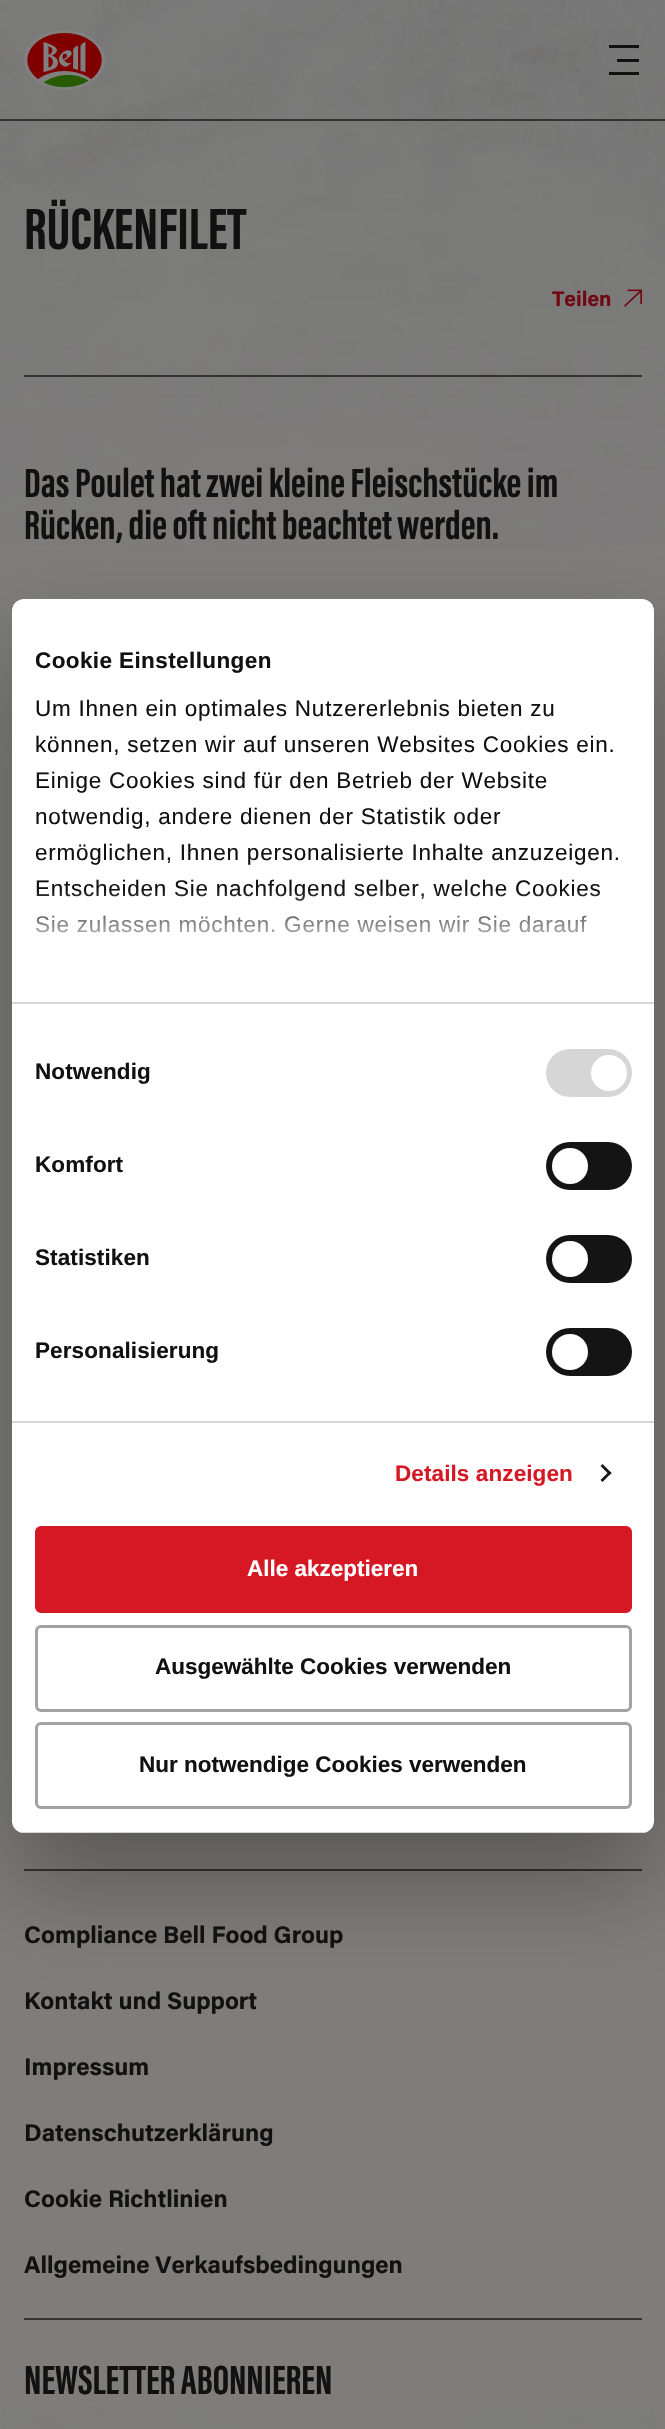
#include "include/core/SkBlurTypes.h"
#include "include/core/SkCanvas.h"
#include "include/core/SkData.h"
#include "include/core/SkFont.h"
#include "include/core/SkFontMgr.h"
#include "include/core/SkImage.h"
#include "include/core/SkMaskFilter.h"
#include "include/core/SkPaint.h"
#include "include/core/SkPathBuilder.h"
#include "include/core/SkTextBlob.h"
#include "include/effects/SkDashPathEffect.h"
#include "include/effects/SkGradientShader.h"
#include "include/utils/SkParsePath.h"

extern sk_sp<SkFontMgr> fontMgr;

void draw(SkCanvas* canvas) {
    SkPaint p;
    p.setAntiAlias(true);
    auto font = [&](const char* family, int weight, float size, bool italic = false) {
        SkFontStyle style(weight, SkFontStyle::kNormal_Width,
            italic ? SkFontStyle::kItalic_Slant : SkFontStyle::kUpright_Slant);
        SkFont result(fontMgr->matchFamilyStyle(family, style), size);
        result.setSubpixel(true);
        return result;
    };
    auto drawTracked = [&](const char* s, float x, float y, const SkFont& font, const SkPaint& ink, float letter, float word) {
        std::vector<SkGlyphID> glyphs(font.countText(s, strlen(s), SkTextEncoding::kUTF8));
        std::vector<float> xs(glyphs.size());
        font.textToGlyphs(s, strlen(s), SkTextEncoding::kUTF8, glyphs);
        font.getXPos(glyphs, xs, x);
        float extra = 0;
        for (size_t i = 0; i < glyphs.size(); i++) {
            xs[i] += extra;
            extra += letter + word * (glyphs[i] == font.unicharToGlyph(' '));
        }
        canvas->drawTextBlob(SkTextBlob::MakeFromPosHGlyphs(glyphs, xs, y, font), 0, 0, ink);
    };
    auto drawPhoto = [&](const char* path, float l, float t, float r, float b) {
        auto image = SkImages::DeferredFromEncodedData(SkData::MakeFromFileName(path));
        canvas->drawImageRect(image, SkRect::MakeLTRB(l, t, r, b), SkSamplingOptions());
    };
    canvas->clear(0xFF7E7D7B);
    drawPhoto("media/1.png", 0, 121, 665, 546);
    drawPhoto("media/2.png", 0, 0, 665, 119);
    drawPhoto("media/3.png", 24, 30, 105, 90);
    {
        const struct { float l, t, r, b; SkColor color; } items[] = {
            {609, 45, 639, 48, 0xFF111111},
            {617, 59, 639, 62, 0xFF111111},
            {609, 72, 639, 75, 0xFF111111},
            {0, 119, 665, 121, 0xFF323232},
        };
        for (auto [l, t, r, b, color] : items) {
            p.setColor(color);
            canvas->drawRect(SkRect::MakeLTRB(l, t, r, b), p);
        }
    }
    auto font1 = font("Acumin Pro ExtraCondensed", 700, 60);
    p.setColor(0xFF111111);
    canvas->drawString("RÜCKENFILET", 24, 249, font1, p);
    auto font2 = font("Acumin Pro", 700, 21);
    p.setColor(0xFF710812);
    canvas->drawString("Teilen", 552, 306, font2, p);
    drawPhoto("media/4.png", 624, 289, 642, 307);
    p.setColor(0xFF323232);
    canvas->drawRect(SkRect::MakeLTRB(24, 375, 642, 377), p);
    auto font3 = font("Acumin Pro ExtraCondensed", 700, 42);
    p.setColor(0xFF111111);
    canvas->drawString("Das Poulet hat zwei kleine Fleischstücke im", 24, 497, font3, p);
    canvas->drawString("Rücken, die oft nicht beachtet werden.", 24, 539, font3, p);
    p.setColor(0xFF323232);
    canvas->drawRect(SkRect::MakeLTRB(24, 1869, 642, 1871), p);
    p.setColor(0x4D000000);
    p.setMaskFilter(SkMaskFilter::MakeBlur(kNormal_SkBlurStyle, 51));
    canvas->drawRoundRect(SkRect::MakeLTRB(12, 647, 654, 1881), 12, 12, p);
    p.setMaskFilter(nullptr);
    p.setColor(0xFFFFFFFF);
    canvas->drawRoundRect(SkRect::MakeLTRB(12, 599, 654, 1833), 12, 12, p);
    p.setColor(0xFFD6D6D6);
    canvas->drawRect(SkRect::MakeLTRB(12, 1002, 654, 1004), p);
    auto font4 = font("Liberation Sans", 700, 22.5f);
    p.setColor(0xFF111111);
    drawTracked("Cookie Einstellungen", 35, 668, font4, p, 0.4f, 0);
    auto font5 = font("Liberation Sans", 400, 22.5f);
    {
        const struct { const char* s; float x, y; } items[] = {
            {"Um Ihnen ein optimales Nutzererlebnis bieten zu", 35, 716},
            {"können, setzen wir auf unseren Websites Cookies ein.", 35, 752},
            {"Einige Cookies sind für den Betrieb der Website", 35, 788},
            {"notwendig, andere dienen der Statistik oder", 35, 824},
            {"ermöglichen, Ihnen personalisierte Inhalte anzuzeigen.", 35, 860},
            {"Entscheiden Sie nachfolgend selber, welche Cookies", 35, 896},
            {"Sie zulassen möchten. Gerne weisen wir Sie darauf", 35, 932},
        };
        for (auto [s, x, y] : items) {
            drawTracked(s, x, y, font5, p, 0.75f, 0);
        }
    }
    {
        const SkColor colors[] = {0xFFFFFFFF, 0xCCFFFFFF, 0x00FFFFFF};
        const float stops[] = {0, 0.5f, 1};
        const SkPoint ends[] = {{323, 1001}, {323, 889}};
        p.setShader(SkGradientShader::MakeLinear(ends, colors, stops, 3, SkTileMode::kClamp));
        p.setAlpha(255);
    }
    canvas->drawRect(SkRect::MakeLTRB(35, 891, 600, 933), p);
    p.setShader(nullptr);
    p.setColor(0xFFD6D6D6);
    canvas->drawRect(SkRect::MakeLTRB(12, 1421, 654, 1423), p);
    p.setColor(0xFF111111);
    drawTracked("Notwendig", 35, 1079, font4, p, 0.1f, 0);
    p.setColor(0xFFD6D6D6);
    canvas->drawRoundRect(SkRect::MakeLTRB(546, 1049, 632, 1097), 24, 24, p);
    p.setColor(0xFFFFFFFF);
    canvas->drawCircle(609, 1073, 18, p);
    p.setColor(0xFF111111);
    drawTracked("Komfort", 35, 1172, font4, p, 0.1f, 0);
    p.setColor(0xFF141414);
    canvas->drawRoundRect(SkRect::MakeLTRB(546, 1142, 632, 1190), 24, 24, p);
    p.setColor(0xFFFFFFFF);
    canvas->drawCircle(570, 1166, 18, p);
    p.setColor(0xFF111111);
    drawTracked("Statistiken", 35, 1265, font4, p, 0.1f, 0);
    p.setColor(0xFF141414);
    canvas->drawRoundRect(SkRect::MakeLTRB(546, 1235, 632, 1283), 24, 24, p);
    p.setColor(0xFFFFFFFF);
    canvas->drawCircle(570, 1259, 18, p);
    p.setColor(0xFF111111);
    drawTracked("Personalisierung", 35, 1358, font4, p, 0.1f, 0);
    p.setColor(0xFF141414);
    canvas->drawRoundRect(SkRect::MakeLTRB(546, 1328, 632, 1376), 24, 24, p);
    p.setColor(0xFFFFFFFF);
    canvas->drawCircle(570, 1352, 18, p);
    p.setColor(0xFFD61825);
    drawTracked("Details anzeigen", 395, 1481, font4, p, 0.1f, 0);
    p.setColor(0xFF141414);
    canvas->drawPath(SkPathBuilder().moveTo(602.5f, 1464).lineTo(611.5f, 1473).lineTo(609.5f, 1475).lineTo(600.5f, 1466).close().detach(), p);
    canvas->drawPath(SkPathBuilder().moveTo(609.5f, 1471).lineTo(611.5f, 1473).lineTo(602.5f, 1482).lineTo(600.5f, 1480).close().detach(), p);
    canvas->save();
    canvas->clipPath(SkPathBuilder().moveTo(24, 599).lineTo(642, 599).cubicTo(648.5f, 599, 654, 604.5f, 654, 611).lineTo(654, 1821).cubicTo(654, 1827.5f, 648.5f, 1833, 642, 1833).lineTo(24, 1833).cubicTo(17.5f, 1833, 12, 1827.5f, 12, 1821).lineTo(12, 611).cubicTo(12, 604.5f, 17.5f, 599, 24, 599).close().detach(), true);
    p.setColor(0xFFD6D6D6);
    canvas->drawRect(SkRect::MakeLTRB(12, 1832, 654, 1833), p);
    canvas->restore();
    p.setColor(0xFFD61825);
    canvas->drawRoundRect(SkRect::MakeLTRB(36.5f, 1527.5f, 630.5f, 1611.5f), 4.5f, 4.5f, p);
    p.setStyle(SkPaint::kStroke_Style);
    p.setStrokeWidth(3);
    canvas->drawRoundRect(SkRect::MakeLTRB(36.5f, 1527.5f, 630.5f, 1611.5f), 4.5f, 4.5f, p);
    p.setStyle(SkPaint::kFill_Style);
    p.setColor(0xFFFFFFFF);
    canvas->drawString("Alle akzeptieren", 247, 1576, font4, p);
    p.setStyle(SkPaint::kStroke_Style);
    p.setColor(0xFFA2A2A2);
    canvas->drawRoundRect(SkRect::MakeLTRB(36.5f, 1626.5f, 630.5f, 1710.5f), 4.5f, 4.5f, p);
    p.setStyle(SkPaint::kFill_Style);
    p.setColor(0xFF111111);
    canvas->drawString("Ausgewählte Cookies verwenden", 155, 1674, font4, p);
    p.setStyle(SkPaint::kStroke_Style);
    p.setColor(0xFFA2A2A2);
    canvas->drawRoundRect(SkRect::MakeLTRB(36.5f, 1723.5f, 630.5f, 1807.5f), 4.5f, 4.5f, p);
    p.setStyle(SkPaint::kFill_Style);
    p.setColor(0xFF111111);
    canvas->drawString("Nur notwendige Cookies verwenden", 139, 1772, font4, p);
    auto font6 = font("Acumin Pro", 700, 24);
    {
        const struct { const char* s; float x, y; } items[] = {
            {"Compliance Bell Food Group", 24, 1943},
            {"Kontakt und Support", 24, 2009},
            {"Impressum", 24, 2075},
            {"Datenschutzerklärung", 24, 2141},
            {"Cookie Richtlinien", 24, 2207},
            {"Allgemeine Verkaufsbedingungen", 24, 2273},
        };
        for (auto [s, x, y] : items) {
            canvas->drawString(s, x, y, font6, p);
        }
    }
    p.setColor(0xFF323232);
    canvas->drawRect(SkRect::MakeLTRB(24, 2318, 642, 2320), p);
    p.setColor(0xFF111111);
    canvas->drawString("NEWSLETTER ABONNIEREN", 24, 2394, font3, p);
    drawPhoto("media/5.png", 3, 2407, 654, 2429);
}
